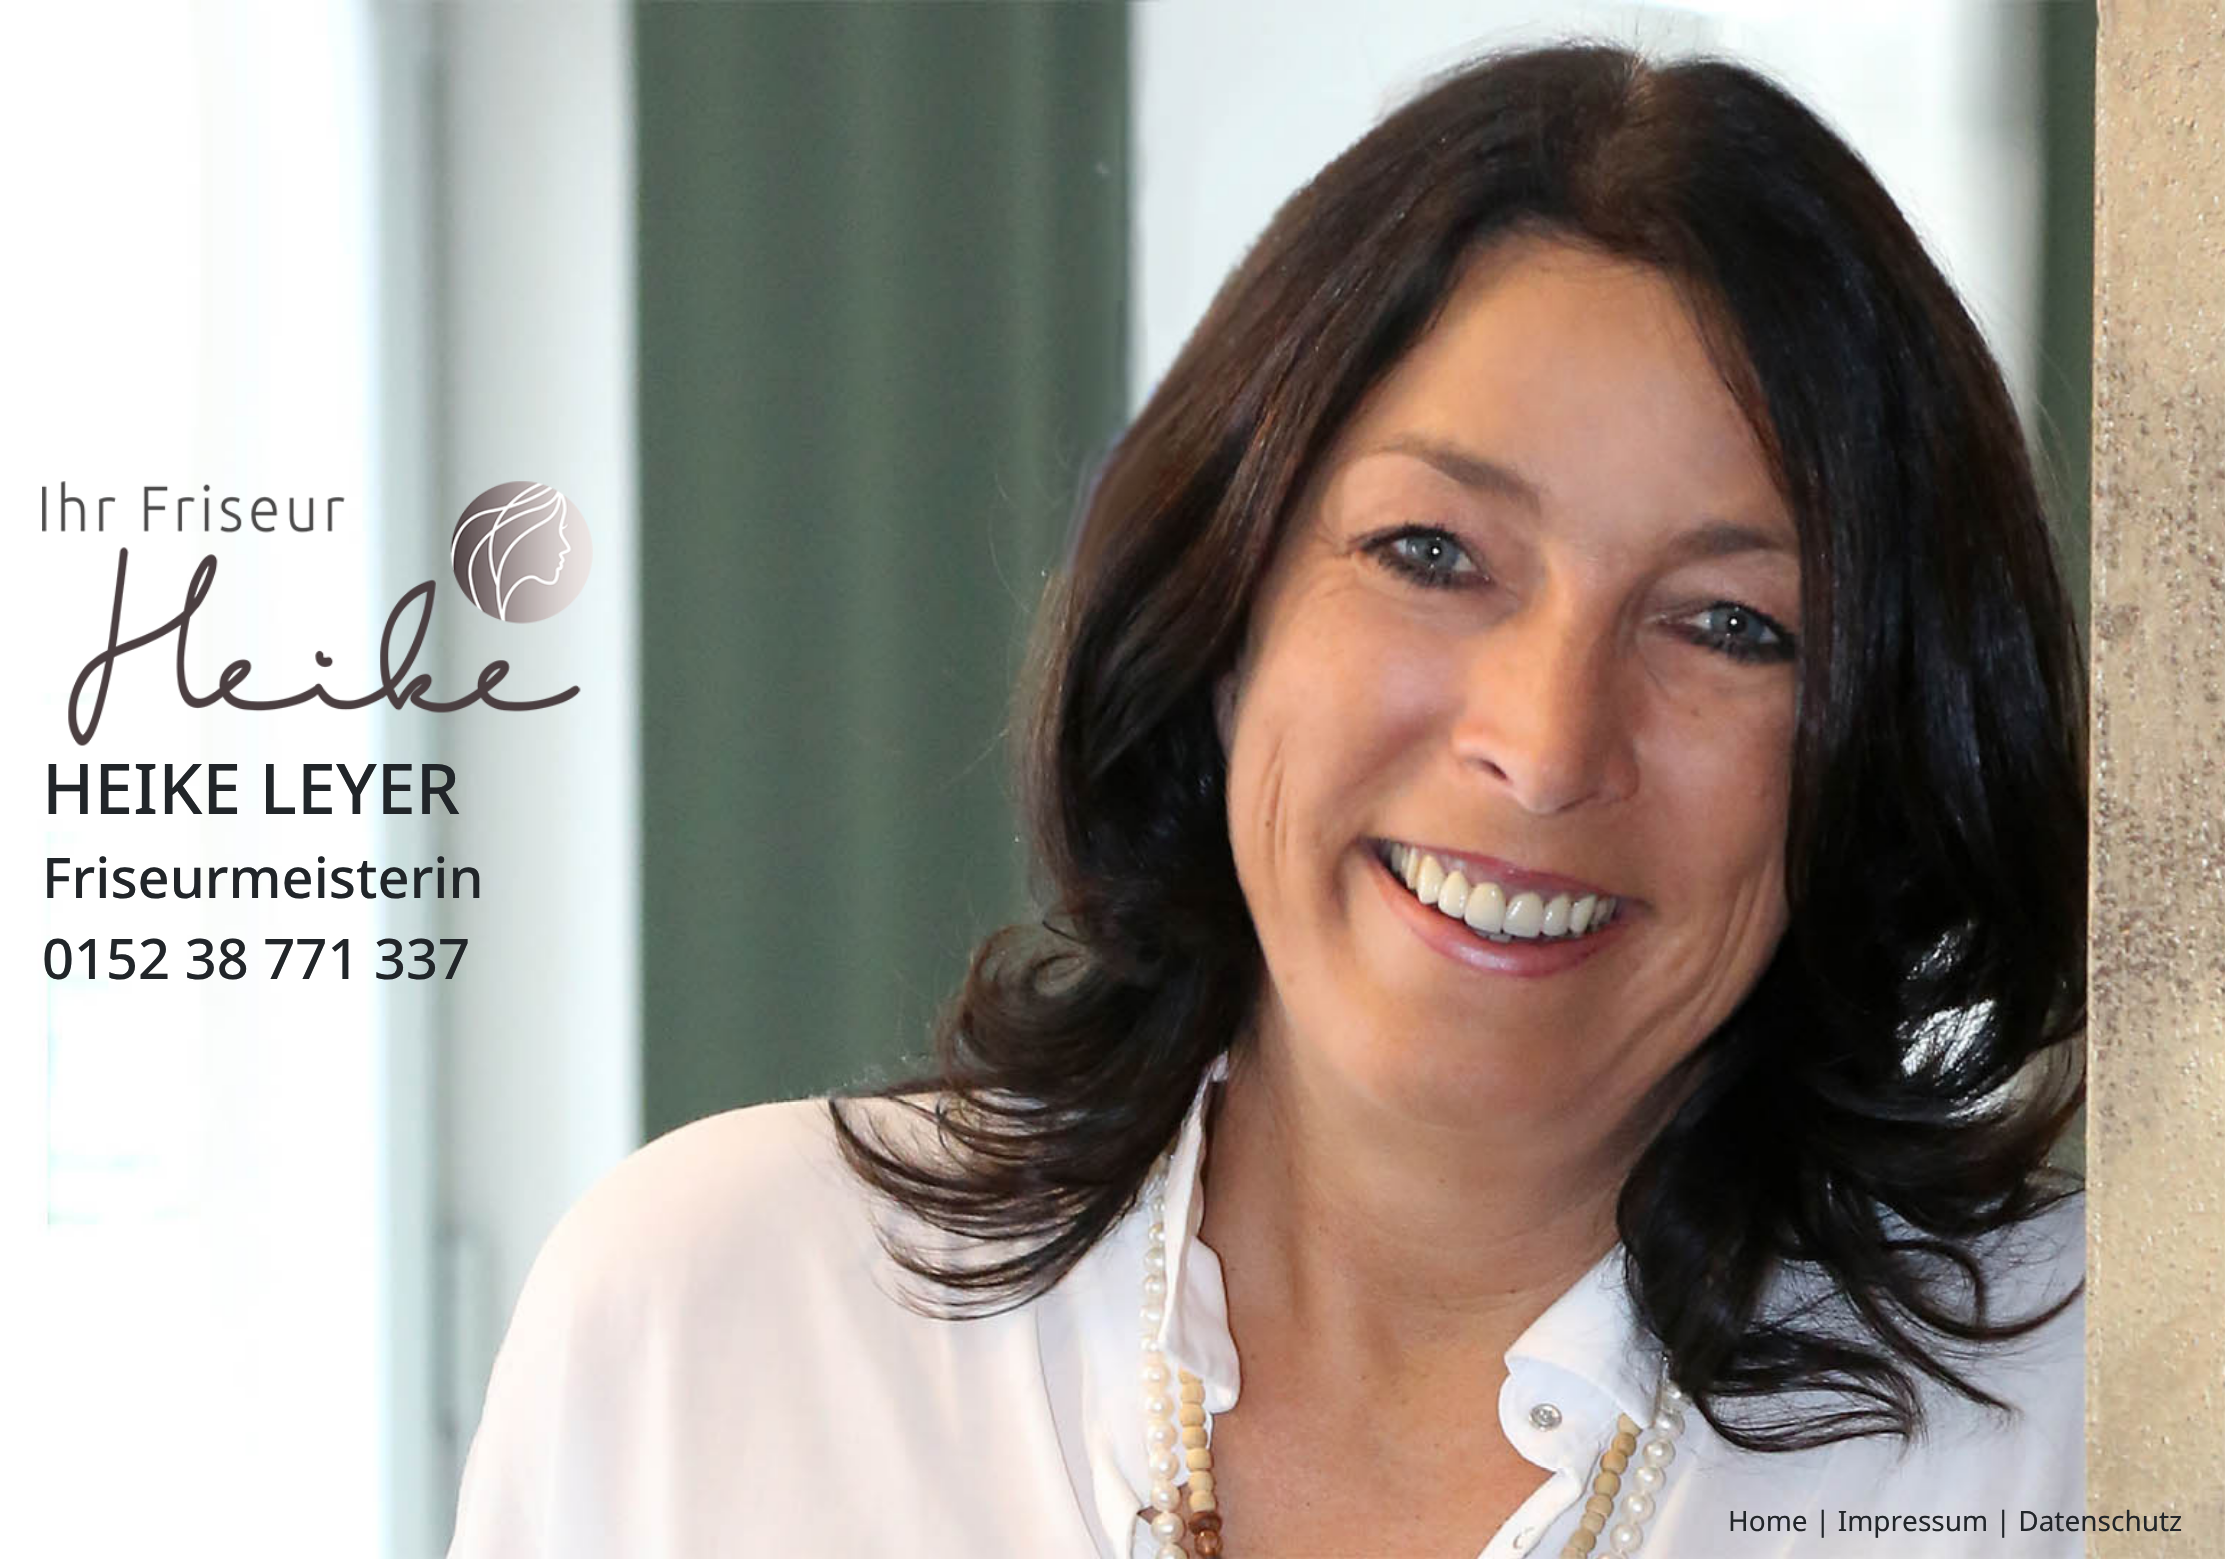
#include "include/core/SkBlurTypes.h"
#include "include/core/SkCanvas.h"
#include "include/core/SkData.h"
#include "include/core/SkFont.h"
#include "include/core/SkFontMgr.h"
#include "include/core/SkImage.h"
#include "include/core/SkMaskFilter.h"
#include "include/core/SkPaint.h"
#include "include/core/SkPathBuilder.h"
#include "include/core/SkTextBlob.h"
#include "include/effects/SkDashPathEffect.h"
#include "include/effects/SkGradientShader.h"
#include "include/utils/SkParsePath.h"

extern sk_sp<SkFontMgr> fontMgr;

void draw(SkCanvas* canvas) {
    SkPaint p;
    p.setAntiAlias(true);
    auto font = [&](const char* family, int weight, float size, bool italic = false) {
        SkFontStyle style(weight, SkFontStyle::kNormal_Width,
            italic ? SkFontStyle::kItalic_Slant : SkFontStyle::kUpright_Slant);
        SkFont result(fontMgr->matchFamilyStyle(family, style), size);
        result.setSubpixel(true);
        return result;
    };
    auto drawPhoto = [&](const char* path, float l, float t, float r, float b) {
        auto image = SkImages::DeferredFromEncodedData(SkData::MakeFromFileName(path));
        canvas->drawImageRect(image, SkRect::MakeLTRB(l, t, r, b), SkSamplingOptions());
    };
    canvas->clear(0xFFFFFFFF);
    drawPhoto("media/1.png", 0, 0, 2225, 1559);
    drawPhoto("media/2.png", 42, 481, 593, 746);
    auto font1 = font("Noto Sans", 500, 70);
    p.setColor(0xFF212529);
    canvas->drawString("HEIKE LEYER", 42, 814, font1, p);
    auto font2 = font("Noto Sans", 500, 56);
    canvas->drawString("Friseurmeisterin", 42, 898, font2, p);
    canvas->drawString("0152 38 771 337", 42, 979, font2, p);
    auto font3 = font("Noto Sans", 400, 28);
    canvas->drawString("Home | Impressum | Datenschutz", 1728, 1531, font3, p);
}
